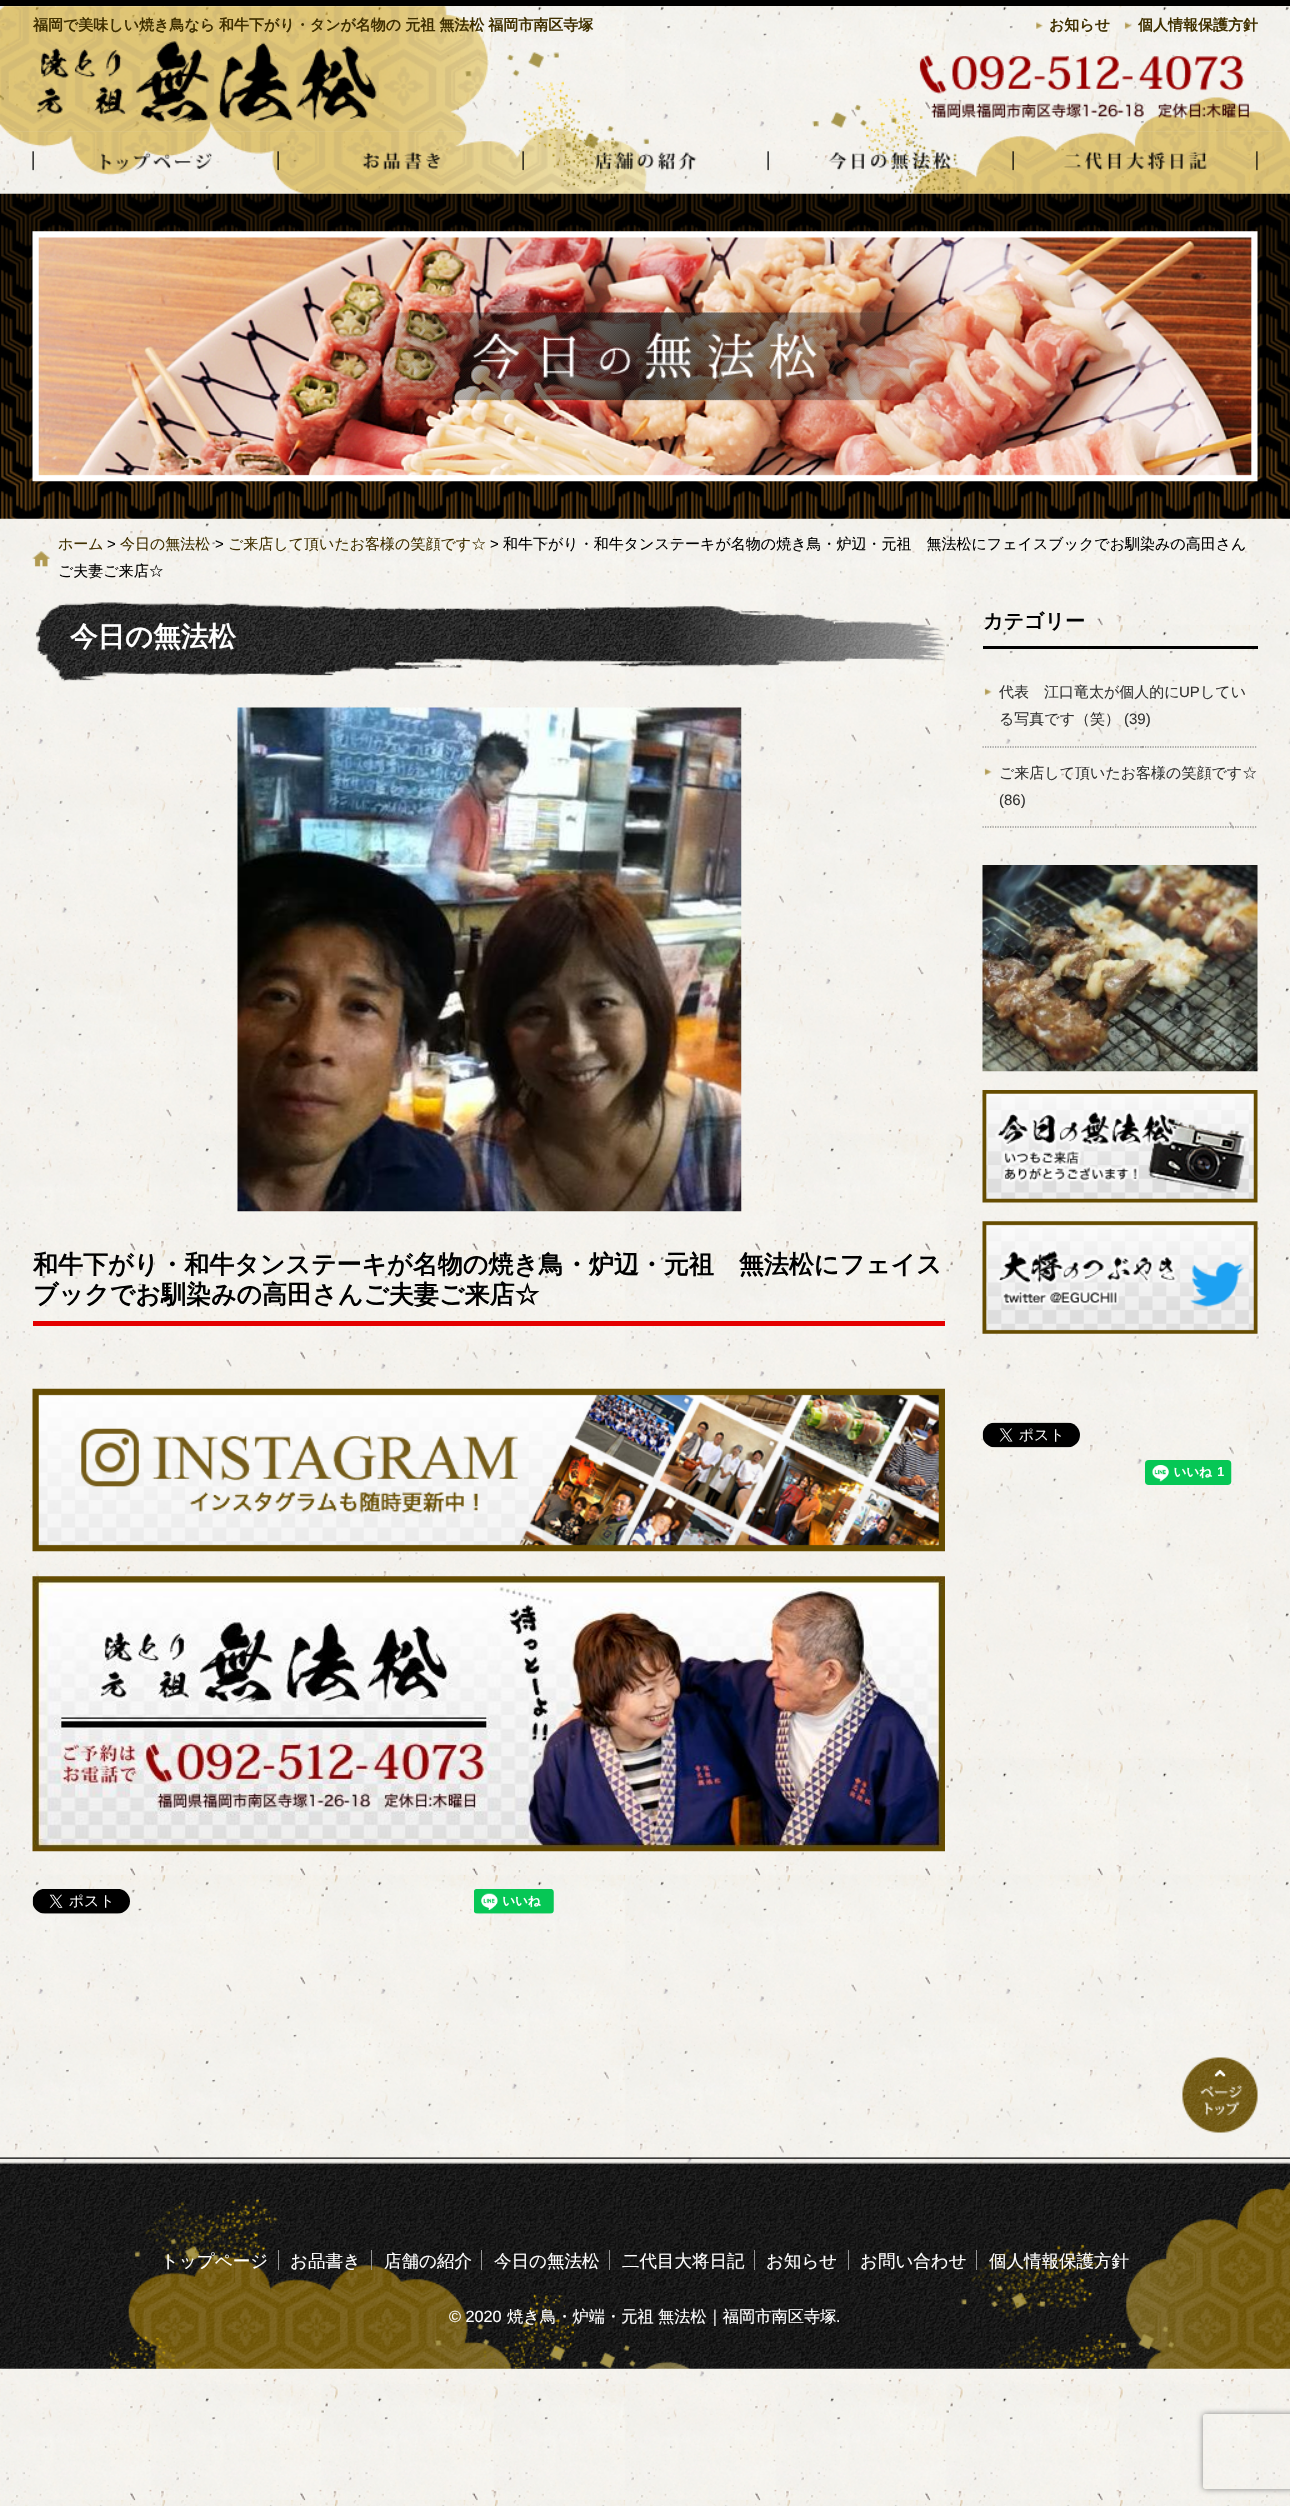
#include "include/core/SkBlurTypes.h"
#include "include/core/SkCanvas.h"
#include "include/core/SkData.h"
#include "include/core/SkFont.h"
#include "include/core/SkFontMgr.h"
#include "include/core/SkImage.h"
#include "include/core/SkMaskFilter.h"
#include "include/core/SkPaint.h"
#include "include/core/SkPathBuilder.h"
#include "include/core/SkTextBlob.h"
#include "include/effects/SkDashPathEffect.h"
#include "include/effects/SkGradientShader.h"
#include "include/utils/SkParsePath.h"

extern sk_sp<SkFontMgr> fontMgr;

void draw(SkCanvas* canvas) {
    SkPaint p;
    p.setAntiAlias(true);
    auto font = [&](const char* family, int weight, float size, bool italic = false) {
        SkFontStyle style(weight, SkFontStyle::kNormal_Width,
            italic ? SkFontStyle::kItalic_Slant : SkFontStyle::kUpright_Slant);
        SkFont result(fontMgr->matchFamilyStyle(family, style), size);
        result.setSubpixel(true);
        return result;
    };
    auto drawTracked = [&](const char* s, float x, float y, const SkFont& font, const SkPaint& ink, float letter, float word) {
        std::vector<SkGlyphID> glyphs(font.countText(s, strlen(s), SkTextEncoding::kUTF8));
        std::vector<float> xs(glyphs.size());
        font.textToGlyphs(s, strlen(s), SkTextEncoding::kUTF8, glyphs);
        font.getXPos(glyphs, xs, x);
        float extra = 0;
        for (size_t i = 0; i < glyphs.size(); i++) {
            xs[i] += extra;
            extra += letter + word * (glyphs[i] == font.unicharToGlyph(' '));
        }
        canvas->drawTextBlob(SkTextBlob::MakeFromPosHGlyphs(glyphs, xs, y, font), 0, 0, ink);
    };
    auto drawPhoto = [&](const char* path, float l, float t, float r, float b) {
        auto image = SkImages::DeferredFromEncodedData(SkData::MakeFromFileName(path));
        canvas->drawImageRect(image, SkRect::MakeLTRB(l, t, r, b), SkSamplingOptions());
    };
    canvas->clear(0xFFFFFFFF);
    drawPhoto("media/1.png", 0, 2369, 1290, 2506);
    drawPhoto("media/2.png", 0, 6, 1290, 2369);
    drawPhoto("media/3.png", 0, 6, 1286, 132);
    p.setColor(0xFF000000);
    canvas->drawRect(SkRect::MakeLTRB(0, 0, 1290, 6), p);
    auto font1 = font("WenQuanYi Zen Hei", 700, 15);
    p.setColor(0xFF403000);
    drawTracked("福岡で美味しい焼き鳥なら 和牛下がり・タンが名物の 元祖 無法松 福岡市南区寺塚", 33, 30, font1, p, 0, -0.5f);
    drawPhoto("media/4.png", 1036, 22, 1043, 29);
    canvas->drawString("お知らせ", 1049, 30, font1, p);
    drawPhoto("media/5.png", 1124, 22, 1132, 29);
    canvas->drawString("個人情報保護方針", 1138, 30, font1, p);
    drawPhoto("media/6.png", 36, 41, 377, 124);
    drawPhoto("media/7.png", 919, 55, 1249, 118);
    drawPhoto("media/8.png", 6, 131, 1290, 194);
    drawPhoto("media/9.png", 32, 151, 212, 171);
    drawPhoto("media/10.png", 277, 151, 441, 171);
    drawPhoto("media/11.png", 522, 151, 697, 171);
    drawPhoto("media/12.png", 767, 151, 951, 171);
    drawPhoto("media/13.png", 1012, 151, 1258, 171);
    drawPhoto("media/14.png", 0, 193, 1290, 519);
    drawPhoto("media/15.png", 32, 231, 1258, 482);
    drawPhoto("media/16.png", 32, 551, 50, 567);
    auto font2 = font("WenQuanYi Zen Hei", 500, 15);
    canvas->drawString("ホーム", 58, 549, font2, p);
    auto font3 = font("Liberation Sans", 400, 15);
    p.setColor(0xFF000000);
    canvas->drawString(">", 107, 549, font3, p);
    p.setColor(0xFF403000);
    canvas->drawString("今日の無法松", 120, 549, font2, p);
    p.setColor(0xFF000000);
    canvas->drawString(">", 215, 549, font3, p);
    p.setColor(0xFF403000);
    canvas->drawString("ご来店して頂いたお客様の笑顔です☆", 228, 549, font2, p);
    p.setColor(0xFF000000);
    canvas->drawString(">", 490, 549, font3, p);
    canvas->drawString("和牛下がり・和牛タンステーキが名物の焼き鳥・炉辺・元祖　無法松にフェイスブックでお馴染みの高田さん", 503, 549, font2, p);
    canvas->drawString("ご夫妻ご来店☆", 58, 576, font2, p);
    drawPhoto("media/17.png", 36, 602, 945, 682);
    auto font4 = font("WenQuanYi Zen Hei", 700, 27.5f);
    p.setColor(0xFFFFFFFF);
    canvas->drawString("今日の無法松", 70, 646, font4, p);
    drawPhoto("media/18.png", 237, 707, 742, 1212);
    p.setColor(0xFFE40000);
    canvas->drawRect(SkRect::MakeLTRB(33, 1321, 945, 1326), p);
    auto font5 = font("WenQuanYi Zen Hei", 700, 25);
    p.setColor(0xFF000000);
    canvas->drawString("和牛下がり・和牛タンステーキが名物の焼き鳥・炉辺・元祖　無法松にフェイス", 33, 1273, font5, p);
    canvas->drawString("ブックでお馴染みの高田さんご夫妻ご来店☆", 33, 1303, font5, p);
    drawPhoto("media/19.png", 32, 1388, 945, 1552);
    drawPhoto("media/20.png", 32, 1576, 945, 1852);
    drawPhoto("media/21.png", 32, 1889, 130, 1914);
    drawPhoto("media/22.png", 474, 1889, 554, 1914);
    canvas->drawRect(SkRect::MakeLTRB(983, 646, 1258, 649), p);
    auto font6 = font("WenQuanYi Zen Hei", 700, 20);
    canvas->drawString("カテゴリー", 983, 628, font6, p);
    p.setStyle(SkPaint::kStroke_Style);
    p.setStrokeWidth(1.2f);
    p.setColor(0xFF666666);
    p.setPathEffect(SkDashPathEffect::Make({{1.25f, 1.25f}}, 0));
    canvas->drawPath(SkPathBuilder().moveTo(982.5f, 747).lineTo(1257.5f, 747).detach(), p);
    p.setPathEffect(nullptr);
    drawPhoto("media/23.png", 984, 688, 992, 696);
    p.setStyle(SkPaint::kFill_Style);
    p.setColor(0xFF333333);
    canvas->drawString("代表　江口竜太が個人的に", 999, 697, font2, p);
    canvas->drawString("UP", 1179, 697, font3, p);
    canvas->drawString("してい", 1200, 697, font2, p);
    canvas->drawString("る写真です（笑）", 999, 724, font2, p);
    canvas->drawString("(39)", 1124, 724, font3, p);
    p.setStyle(SkPaint::kStroke_Style);
    p.setColor(0xFF666666);
    p.setPathEffect(SkDashPathEffect::Make({{1.25f, 1.25f}}, 0));
    canvas->drawPath(SkPathBuilder().moveTo(982.5f, 827).lineTo(1257.5f, 827).detach(), p);
    p.setPathEffect(nullptr);
    drawPhoto("media/24.png", 984, 768, 992, 776);
    p.setStyle(SkPaint::kFill_Style);
    p.setColor(0xFF333333);
    canvas->drawString("ご来店して頂いたお客様の笑顔です☆", 999, 778, font2, p);
    canvas->drawString("(86)", 999, 805, font3, p);
    drawPhoto("media/25.png", 982, 865, 1258, 1072);
    drawPhoto("media/26.png", 982, 1090, 1258, 1203);
    drawPhoto("media/27.png", 982, 1221, 1258, 1334);
    drawPhoto("media/28.png", 982, 1422, 1080, 1448);
    drawPhoto("media/29.png", 1145, 1460, 1232, 1485);
    drawPhoto("media/30.png", 1182, 2057, 1258, 2133);
    drawPhoto("media/31.png", 0, 2157, 1290, 2369);
    auto font7 = font("WenQuanYi Zen Hei", 500, 17.5f);
    p.setColor(0xFFFFFFFF);
    canvas->drawString("トップページ", 161, 2267, font7, p);
    p.setColor(0xFF999999);
    canvas->drawRect(SkRect::MakeLTRB(278, 2250, 279, 2270), p);
    p.setColor(0xFFFFFFFF);
    canvas->drawString("お品書き", 290, 2267, font7, p);
    p.setColor(0xFF999999);
    canvas->drawRect(SkRect::MakeLTRB(371, 2250, 372, 2270), p);
    p.setColor(0xFFFFFFFF);
    canvas->drawString("店舗の紹介", 384, 2267, font7, p);
    p.setColor(0xFF999999);
    canvas->drawRect(SkRect::MakeLTRB(481, 2250, 482, 2270), p);
    p.setColor(0xFFFFFFFF);
    canvas->drawString("今日の無法松", 494, 2267, font7, p);
    p.setColor(0xFF999999);
    canvas->drawRect(SkRect::MakeLTRB(609, 2250, 610, 2270), p);
    p.setColor(0xFFFFFFFF);
    canvas->drawString("二代目大将日記", 622, 2267, font7, p);
    p.setColor(0xFF999999);
    canvas->drawRect(SkRect::MakeLTRB(754, 2250, 755, 2270), p);
    p.setColor(0xFFFFFFFF);
    canvas->drawString("お知らせ", 766, 2267, font7, p);
    p.setColor(0xFF999999);
    canvas->drawRect(SkRect::MakeLTRB(848, 2250, 849, 2270), p);
    p.setColor(0xFFFFFFFF);
    canvas->drawString("お問い合わせ", 860, 2267, font7, p);
    p.setColor(0xFF999999);
    canvas->drawRect(SkRect::MakeLTRB(976, 2250, 977, 2270), p);
    p.setColor(0xFFFFFFFF);
    canvas->drawString("個人情報保護方針", 989, 2267, font7, p);
    auto font8 = font("Liberation Sans", 400, 16.25f);
    canvas->drawString("© 2020", 449, 2322, font8, p);
    auto font9 = font("WenQuanYi Zen Hei", 500, 16.25f);
    canvas->drawString("焼き鳥・炉端・元祖", 507, 2322, font9, p);
    canvas->drawString("無法松｜福岡市南区寺塚", 658, 2322, font9, p);
    canvas->drawString(".", 836, 2322, font8, p);
    canvas->save();
    canvas->clipPath(SkPathBuilder(SkPathFillType::kEvenOdd).moveTo(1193, 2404).lineTo(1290, 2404).lineTo(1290, 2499).lineTo(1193, 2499).close().moveTo(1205.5f, 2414).lineTo(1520.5f, 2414).cubicTo(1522, 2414, 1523, 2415, 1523, 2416.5f).lineTo(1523, 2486.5f).cubicTo(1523, 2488, 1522, 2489, 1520.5f, 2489).lineTo(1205.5f, 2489).cubicTo(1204, 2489, 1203, 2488, 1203, 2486.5f).lineTo(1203, 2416.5f).cubicTo(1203, 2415, 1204, 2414, 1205.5f, 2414).close().detach(), true);
    p.setColor(0xFF808080);
    p.setMaskFilter(SkMaskFilter::MakeBlur(kNormal_SkBlurStyle, 3));
    canvas->drawRoundRect(SkRect::MakeLTRB(1203, 2414, 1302, 2489), 2.5f, 2.5f, p);
    p.setMaskFilter(nullptr);
    canvas->restore();
}
